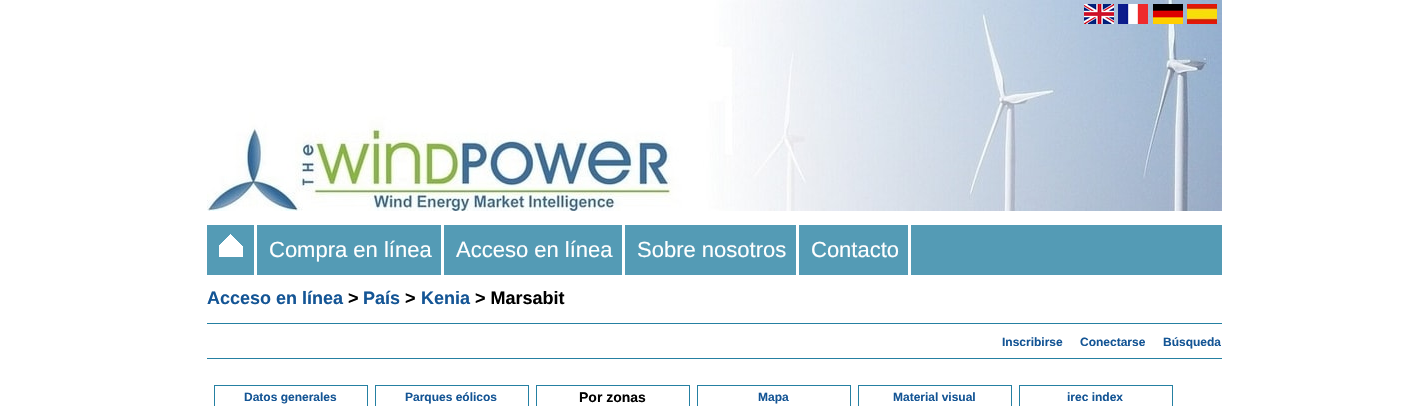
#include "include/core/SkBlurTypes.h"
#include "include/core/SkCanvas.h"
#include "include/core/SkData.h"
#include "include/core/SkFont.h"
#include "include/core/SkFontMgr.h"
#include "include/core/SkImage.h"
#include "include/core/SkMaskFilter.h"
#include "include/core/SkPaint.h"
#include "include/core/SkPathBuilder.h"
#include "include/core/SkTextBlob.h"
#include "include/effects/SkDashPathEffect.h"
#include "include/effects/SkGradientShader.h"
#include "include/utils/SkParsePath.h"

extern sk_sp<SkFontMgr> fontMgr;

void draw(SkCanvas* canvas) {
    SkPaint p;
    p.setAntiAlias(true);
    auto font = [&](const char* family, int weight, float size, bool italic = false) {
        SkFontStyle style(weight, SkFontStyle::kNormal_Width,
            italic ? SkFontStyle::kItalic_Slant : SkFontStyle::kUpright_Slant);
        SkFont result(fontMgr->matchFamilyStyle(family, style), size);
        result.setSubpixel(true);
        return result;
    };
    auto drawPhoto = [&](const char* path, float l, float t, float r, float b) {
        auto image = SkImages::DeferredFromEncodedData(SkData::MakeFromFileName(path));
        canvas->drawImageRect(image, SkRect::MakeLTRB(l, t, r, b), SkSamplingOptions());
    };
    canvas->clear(0xFFFFFFFF);
    drawPhoto("media/1.png", 207, 0, 1222, 211);
    drawPhoto("media/2.png", 1084, 4, 1114, 24);
    drawPhoto("media/3.png", 1118, 4, 1148, 24);
    drawPhoto("media/4.png", 1153, 4, 1183, 24);
    drawPhoto("media/5.png", 1187, 4, 1217, 24);
    p.setColor(0xFF549BB5);
    canvas->drawRect(SkRect::MakeLTRB(207, 225, 1222, 275), p);
    p.setColor(0xFFFFFFFF);
    canvas->drawRect(SkRect::MakeLTRB(254, 225, 257, 275), p);
    drawPhoto("media/6.png", 219, 234, 243, 257);
    canvas->drawRect(SkRect::MakeLTRB(441, 225, 444, 275), p);
    auto font1 = font("Liberation Sans", 400, 22);
    canvas->drawString("Compra en línea", 269, 257, font1, p);
    canvas->drawRect(SkRect::MakeLTRB(622, 225, 625, 275), p);
    canvas->drawString("Acceso en línea", 456, 257, font1, p);
    canvas->drawRect(SkRect::MakeLTRB(796, 225, 799, 275), p);
    canvas->drawString("Sobre nosotros", 637, 257, font1, p);
    canvas->drawRect(SkRect::MakeLTRB(908, 225, 911, 275), p);
    canvas->drawString("Contacto", 811, 257, font1, p);
    auto font2 = font("Liberation Sans", 700, 18);
    p.setColor(0xFF145595);
    canvas->drawString("Acceso en línea", 207, 304, font2, p);
    p.setColor(0xFF000000);
    canvas->drawString(">", 348, 304, font2, p);
    p.setColor(0xFF145595);
    canvas->drawString("País", 363, 304, font2, p);
    p.setColor(0xFF000000);
    canvas->drawString(">", 405, 304, font2, p);
    p.setColor(0xFF145595);
    canvas->drawString("Kenia", 421, 304, font2, p);
    p.setColor(0xFF000000);
    canvas->drawString("> Marsabit", 475, 304, font2, p);
    p.setColor(0xFF2580A2);
    canvas->drawRect(SkRect::MakeLTRB(207, 323, 1222, 324), p);
    auto font3 = font("Liberation Sans", 700, 12);
    p.setColor(0xFF145595);
    {
        const struct { const char* s; float x, y; } items[] = {
            {"Inscribirse", 1002, 346},
            {"Conectarse", 1080, 346},
            {"Búsqueda", 1163, 346},
        };
        for (auto [s, x, y] : items) {
            canvas->drawString(s, x, y, font3, p);
        }
    }
    p.setColor(0xFF2580A2);
    canvas->drawRect(SkRect::MakeLTRB(207, 358, 1222, 359), p);
    p.setStyle(SkPaint::kStroke_Style);
    p.setStrokeWidth(1);
    canvas->drawRect(SkRect::MakeLTRB(214.5f, 385.5f, 367.5f, 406.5f), p);
    p.setStyle(SkPaint::kFill_Style);
    p.setColor(0xFF145595);
    canvas->drawString("Datos generales", 244, 401, font3, p);
    p.setStyle(SkPaint::kStroke_Style);
    p.setColor(0xFF2580A2);
    canvas->drawRect(SkRect::MakeLTRB(375.5f, 385.5f, 528.5f, 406.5f), p);
    p.setStyle(SkPaint::kFill_Style);
    p.setColor(0xFF145595);
    canvas->drawString("Parques eólicos", 405, 401, font3, p);
    {
        const struct { float l, t, r, b; SkColor color; } items[] = {
            {536, 385, 690, 386, 0xFF2580A2},
            {689, 385, 690, 406, 0xFF2580A2},
            {536, 385, 537, 406, 0xFF2580A2},
        };
        for (auto [l, t, r, b, color] : items) {
            p.setColor(color);
            canvas->drawRect(SkRect::MakeLTRB(l, t, r, b), p);
        }
    }
    auto font4 = font("Liberation Sans", 700, 14);
    p.setColor(0xFF000000);
    canvas->drawString("Por zonas", 579, 402, font4, p);
    p.setStyle(SkPaint::kStroke_Style);
    p.setColor(0xFF2580A2);
    canvas->drawRect(SkRect::MakeLTRB(697.5f, 385.5f, 850.5f, 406.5f), p);
    p.setStyle(SkPaint::kFill_Style);
    p.setColor(0xFF145595);
    canvas->drawString("Mapa", 758, 401, font3, p);
    p.setStyle(SkPaint::kStroke_Style);
    p.setColor(0xFF2580A2);
    canvas->drawRect(SkRect::MakeLTRB(858.5f, 385.5f, 1011.5f, 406.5f), p);
    p.setStyle(SkPaint::kFill_Style);
    p.setColor(0xFF145595);
    canvas->drawString("Material visual", 893, 401, font3, p);
    p.setStyle(SkPaint::kStroke_Style);
    p.setColor(0xFF2580A2);
    canvas->drawRect(SkRect::MakeLTRB(1019.5f, 385.5f, 1172.5f, 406.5f), p);
    p.setStyle(SkPaint::kFill_Style);
    p.setColor(0xFF145595);
    canvas->drawString("irec index", 1067, 401, font3, p);
}
